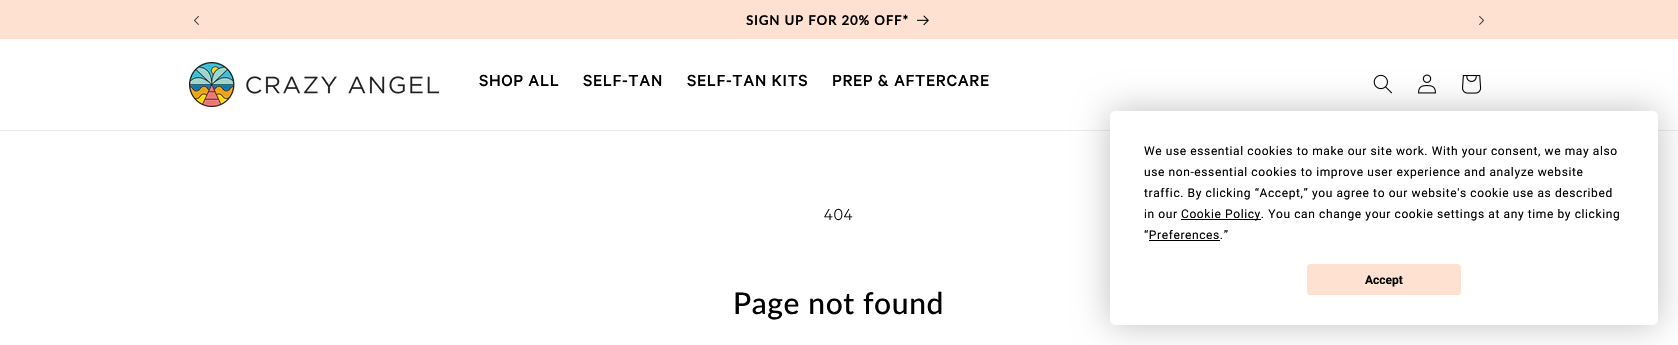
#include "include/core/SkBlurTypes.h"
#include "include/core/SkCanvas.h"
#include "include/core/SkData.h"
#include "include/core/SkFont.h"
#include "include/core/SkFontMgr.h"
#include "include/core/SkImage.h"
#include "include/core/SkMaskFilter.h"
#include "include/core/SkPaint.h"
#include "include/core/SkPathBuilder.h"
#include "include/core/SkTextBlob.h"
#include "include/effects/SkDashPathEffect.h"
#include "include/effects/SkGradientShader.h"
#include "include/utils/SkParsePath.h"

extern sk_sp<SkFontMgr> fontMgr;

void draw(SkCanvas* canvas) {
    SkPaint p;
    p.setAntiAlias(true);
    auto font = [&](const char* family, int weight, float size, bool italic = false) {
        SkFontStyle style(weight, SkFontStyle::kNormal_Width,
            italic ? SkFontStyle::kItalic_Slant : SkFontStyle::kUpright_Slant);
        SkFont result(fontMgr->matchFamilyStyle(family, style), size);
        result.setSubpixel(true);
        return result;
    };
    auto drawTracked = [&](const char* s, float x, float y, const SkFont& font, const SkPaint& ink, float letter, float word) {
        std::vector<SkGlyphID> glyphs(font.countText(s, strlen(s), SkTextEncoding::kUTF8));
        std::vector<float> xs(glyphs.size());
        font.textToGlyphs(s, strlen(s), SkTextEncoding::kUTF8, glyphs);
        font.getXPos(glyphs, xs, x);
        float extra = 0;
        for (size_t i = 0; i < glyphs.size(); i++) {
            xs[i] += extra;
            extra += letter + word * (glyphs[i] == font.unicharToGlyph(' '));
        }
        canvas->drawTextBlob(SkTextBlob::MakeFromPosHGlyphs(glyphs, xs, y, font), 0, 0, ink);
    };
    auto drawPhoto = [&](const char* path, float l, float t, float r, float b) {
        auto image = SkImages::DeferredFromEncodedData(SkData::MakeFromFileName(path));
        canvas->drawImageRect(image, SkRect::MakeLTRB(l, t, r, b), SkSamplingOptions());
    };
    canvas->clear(0xFFFFFFFF);
    p.setColor(0xFFFFE1D1);
    canvas->drawRect(SkRect::MakeLTRB(0, 0, 1678, 39), p);
    drawPhoto("media/1.png", 194, 16, 199, 25);
    auto font1 = font("Lato", 700, 13);
    p.setColor(0xFF000000);
    drawTracked("SIGN UP FOR 20% OFF*", 746, 25, font1, p, 1, 0);
    drawPhoto("media/2.png", 917, 15, 929, 26);
    drawPhoto("media/3.png", 1479, 16, 1484, 25);
    p.setColor(0xFFEBEBEB);
    canvas->drawRect(SkRect::MakeLTRB(0, 130, 1678, 131), p);
    drawPhoto("media/4.png", 189, 62, 439, 107);
    auto font2 = font("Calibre", 500, 18);
    p.setColor(0xFF000000);
    {
        const struct { const char* s; float x, y; } items[] = {
            {"SHOP ALL", 479, 86},
            {"SELF-TAN", 583, 86},
            {"SELF-TAN KITS", 687, 86},
            {"PREP & AFTERCARE", 832, 86},
        };
        for (auto [s, x, y] : items) {
            drawTracked(s, x, y, font2, p, 0.6f, 0);
        }
    }
    drawPhoto("media/5.png", 1373, 74, 1392, 94);
    drawPhoto("media/6.png", 1418, 74, 1436, 94);
    drawPhoto("media/7.png", 1462, 75, 1482, 94);
    auto font3 = font("Calibre", 300, 18);
    drawTracked("404", 824, 220, font3, p, 0.6f, 0);
    auto font4 = font("Lato", 500, 30);
    drawTracked("Page not found", 733, 314, font4, p, 0.6f, 0);
    p.setColor(0x40000000);
    p.setMaskFilter(SkMaskFilter::MakeBlur(kNormal_SkBlurStyle, 17.5f));
    canvas->drawRoundRect(SkRect::MakeLTRB(1110, 111, 1658, 325), 5, 5, p);
    p.setMaskFilter(nullptr);
    p.setColor(0xFFFFFFFF);
    canvas->drawRoundRect(SkRect::MakeLTRB(1110, 111, 1658, 325), 5, 5, p);
    auto font5 = font("Roboto", 400, 12);
    p.setColor(0xFF000000);
    {
        const struct { const char* s; float x, y; } items[] = {
            {"We use essential cookies to make our site work. With your consent, we may also", 1144, 155},
            {"use non-essential cookies to improve user experience and analyze website", 1144, 176},
            {"traffic. By clicking “Accept,” you agree to our website's cookie use as described", 1144, 197},
            {"in our", 1144, 218},
        };
        for (auto [s, x, y] : items) {
            drawTracked(s, x, y, font5, p, 0.6f, 0);
        }
    }
    canvas->drawRect(SkRect::MakeLTRB(1181, 219, 1261, 220), p);
    drawTracked("Cookie Policy. You can change your cookie settings at any time by clicking", 1181, 218, font5, p, 0.6f, 0);
    drawTracked("“Preferences.”", 1144, 239, font5, p, 0.6f, 0);
    canvas->drawRect(SkRect::MakeLTRB(1149, 240, 1220, 241), p);
    p.setColor(0xFFFFE1D1);
    canvas->drawRoundRect(SkRect::MakeLTRB(1307.5f, 264.5f, 1460.5f, 294.5f), 2.5f, 2.5f, p);
    p.setStyle(SkPaint::kStroke_Style);
    p.setStrokeWidth(1);
    canvas->drawRoundRect(SkRect::MakeLTRB(1307.5f, 264.5f, 1460.5f, 294.5f), 2.5f, 2.5f, p);
    auto font6 = font("Roboto", 700, 12);
    p.setStyle(SkPaint::kFill_Style);
    p.setColor(0xFF000000);
    canvas->drawString("Accept", 1365, 284, font6, p);
}
